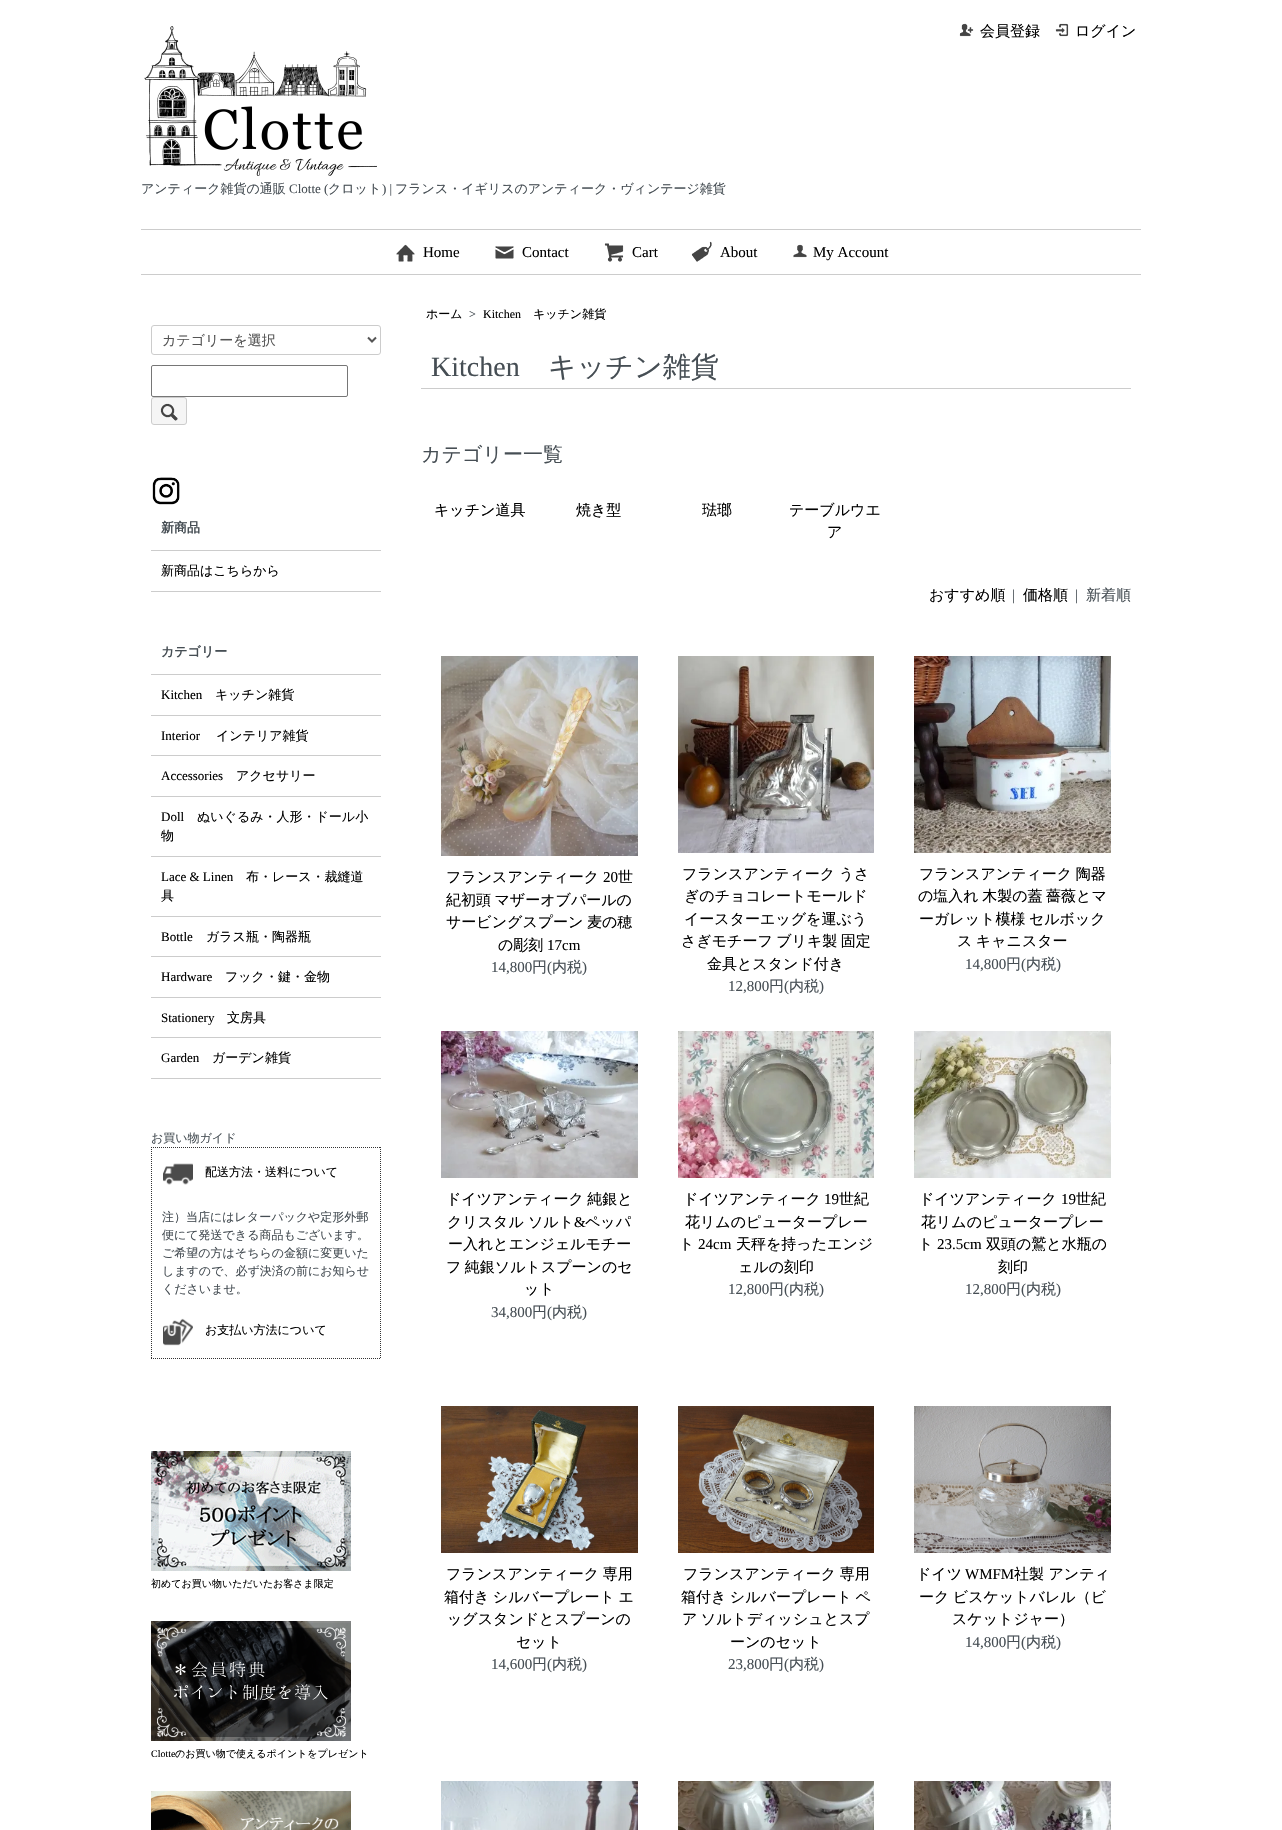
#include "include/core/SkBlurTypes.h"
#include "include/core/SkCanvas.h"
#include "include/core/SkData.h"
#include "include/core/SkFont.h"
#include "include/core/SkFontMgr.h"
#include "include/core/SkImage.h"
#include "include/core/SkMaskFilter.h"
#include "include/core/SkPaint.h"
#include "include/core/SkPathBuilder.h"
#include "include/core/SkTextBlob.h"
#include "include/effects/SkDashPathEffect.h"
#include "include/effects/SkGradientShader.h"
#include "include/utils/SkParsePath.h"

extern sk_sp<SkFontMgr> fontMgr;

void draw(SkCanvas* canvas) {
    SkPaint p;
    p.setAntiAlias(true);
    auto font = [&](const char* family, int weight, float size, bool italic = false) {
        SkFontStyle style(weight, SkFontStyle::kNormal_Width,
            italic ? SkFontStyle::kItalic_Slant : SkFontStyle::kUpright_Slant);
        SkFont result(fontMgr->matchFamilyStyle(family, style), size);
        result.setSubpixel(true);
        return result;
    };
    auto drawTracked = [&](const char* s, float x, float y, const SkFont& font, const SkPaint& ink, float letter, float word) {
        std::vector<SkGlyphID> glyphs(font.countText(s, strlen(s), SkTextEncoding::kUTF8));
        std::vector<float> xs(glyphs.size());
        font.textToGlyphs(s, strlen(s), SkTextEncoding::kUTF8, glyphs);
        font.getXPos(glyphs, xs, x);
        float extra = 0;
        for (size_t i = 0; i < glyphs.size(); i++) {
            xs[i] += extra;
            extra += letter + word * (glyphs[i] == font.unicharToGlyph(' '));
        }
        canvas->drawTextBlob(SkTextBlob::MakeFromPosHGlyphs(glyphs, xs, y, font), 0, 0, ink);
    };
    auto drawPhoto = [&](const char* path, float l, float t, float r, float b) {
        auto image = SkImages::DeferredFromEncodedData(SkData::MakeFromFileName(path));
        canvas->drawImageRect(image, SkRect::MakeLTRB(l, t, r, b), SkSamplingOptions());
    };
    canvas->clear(0xFFFFFFFF);
    drawPhoto("media/1.png", 144, 26, 377, 176);
    drawPhoto("media/2.png", 959, 23, 974, 37);
    auto font1 = font("WenQuanYi Zen Hei", 500, 15);
    p.setColor(0xFF000000);
    canvas->drawString("会員登録", 980, 36, font1, p);
    drawPhoto("media/3.png", 1055, 23, 1069, 37);
    canvas->drawString("ログイン", 1075, 36, font1, p);
    auto font2 = font("WenQuanYi Zen Hei", 500, 13);
    p.setColor(0xFF464E54);
    canvas->drawString("アンティーク雑貨の通販", 141, 193, font2, p);
    auto font3 = font("Liberation Serif", 400, 13);
    canvas->drawString("Clotte (", 289, 193, font3, p);
    canvas->drawString("クロット", 328, 193, font2, p);
    canvas->drawString(") |", 382, 193, font3, p);
    canvas->drawString("フランス・イギリスのアンティーク・ヴィンテージ雑貨", 395, 193, font2, p);
    p.setColor(0xFFCCCCCC);
    canvas->drawRect(SkRect::MakeLTRB(141, 229, 1141, 230), p);
    canvas->drawRect(SkRect::MakeLTRB(141, 274, 1141, 275), p);
    drawPhoto("media/4.png", 396, 244, 415, 262);
    auto font4 = font("Liberation Serif", 400, 15);
    p.setColor(0xFF000000);
    canvas->drawString("Home", 423, 257, font4, p);
    drawPhoto("media/5.png", 495, 246, 514, 259);
    canvas->drawString("Contact", 522, 257, font4, p);
    drawPhoto("media/6.png", 604, 243, 624, 262);
    canvas->drawString("Cart", 632, 257, font4, p);
    drawPhoto("media/7.png", 691, 241, 712, 262);
    canvas->drawString("About", 720, 257, font4, p);
    drawPhoto("media/8.png", 793, 244, 807, 258);
    canvas->drawString("My Account", 813, 257, font4, p);
    p.setStyle(SkPaint::kStroke_Style);
    p.setStrokeWidth(1);
    p.setColor(0xFFCCCCCC);
    canvas->drawRoundRect(SkRect::MakeLTRB(151.5f, 325.5f, 380.5f, 354.5f), 2.5f, 2.5f, p);
    p.setStrokeWidth(2);
    p.setColor(0xFF555555);
    canvas->drawPath(SkPathBuilder().moveTo(368, 337.5f).lineTo(372, 341.5f).lineTo(376, 337.5f).detach(), p);
    auto font5 = font("WenQuanYi Zen Hei", 500, 14);
    p.setStyle(SkPaint::kFill_Style);
    canvas->drawString("カテゴリーを選択", 162, 345, font5, p);
    p.setStyle(SkPaint::kStroke_Style);
    p.setStrokeWidth(1);
    p.setColor(0xFF767676);
    canvas->drawRoundRect(SkRect::MakeLTRB(151.5f, 365.5f, 347.5f, 396.5f), 1.5f, 1.5f, p);
    p.setStyle(SkPaint::kFill_Style);
    p.setColor(0xFFF5F5F5);
    canvas->drawRoundRect(SkRect::MakeLTRB(151.5f, 397.5f, 186.5f, 424.5f), 2.5f, 2.5f, p);
    p.setStyle(SkPaint::kStroke_Style);
    p.setColor(0xFFCCCCCC);
    canvas->drawRoundRect(SkRect::MakeLTRB(151.5f, 397.5f, 186.5f, 424.5f), 2.5f, 2.5f, p);
    drawPhoto("media/9.png", 160, 403, 178, 421);
    drawPhoto("media/10.png", 152, 477, 180, 505);
    auto font6 = font("WenQuanYi Zen Hei", 700, 13);
    p.setStyle(SkPaint::kFill_Style);
    p.setColor(0xFF464E54);
    canvas->drawString("新商品", 161, 532, font6, p);
    p.setColor(0xFFCCCCCC);
    canvas->drawRect(SkRect::MakeLTRB(151, 591, 381, 592), p);
    canvas->drawRect(SkRect::MakeLTRB(151, 550, 381, 551), p);
    p.setColor(0xFF000000);
    canvas->drawString("新商品はこちらから", 161, 575, font2, p);
    p.setColor(0xFF464E54);
    canvas->drawString("カテゴリー", 161, 656, font6, p);
    p.setColor(0xFFCCCCCC);
    canvas->drawRect(SkRect::MakeLTRB(151, 1078, 381, 1079), p);
    canvas->drawRect(SkRect::MakeLTRB(151, 674, 381, 675), p);
    p.setColor(0xFF000000);
    canvas->drawString("Kitchen", 161, 699, font3, p);
    canvas->drawString("キッチン雑貨", 215, 699, font2, p);
    p.setColor(0xFFCCCCCC);
    canvas->drawRect(SkRect::MakeLTRB(151, 715, 381, 716), p);
    p.setColor(0xFF000000);
    canvas->drawString("Interior", 161, 740, font3, p);
    canvas->drawString("インテリア雑貨", 216, 740, font2, p);
    p.setColor(0xFFCCCCCC);
    canvas->drawRect(SkRect::MakeLTRB(151, 755, 381, 756), p);
    p.setColor(0xFF000000);
    canvas->drawString("Accessories", 161, 780, font3, p);
    canvas->drawString("アクセサリー", 236, 780, font2, p);
    p.setColor(0xFFCCCCCC);
    canvas->drawRect(SkRect::MakeLTRB(151, 796, 381, 797), p);
    p.setColor(0xFF000000);
    canvas->drawString("Doll", 161, 821, font3, p);
    canvas->drawString("ぬいぐるみ・人形・ドール小", 197, 821, font2, p);
    canvas->drawString("物", 161, 840, font2, p);
    p.setColor(0xFFCCCCCC);
    canvas->drawRect(SkRect::MakeLTRB(151, 856, 381, 857), p);
    p.setColor(0xFF000000);
    canvas->drawString("Lace & Linen", 161, 881, font3, p);
    canvas->drawString("布・レース・裁縫道", 246, 881, font2, p);
    canvas->drawString("具", 161, 900, font2, p);
    p.setColor(0xFFCCCCCC);
    canvas->drawRect(SkRect::MakeLTRB(151, 916, 381, 917), p);
    p.setColor(0xFF000000);
    canvas->drawString("Bottle", 161, 941, font3, p);
    canvas->drawString("ガラス瓶・陶器瓶", 206, 941, font2, p);
    p.setColor(0xFFCCCCCC);
    canvas->drawRect(SkRect::MakeLTRB(151, 956, 381, 957), p);
    p.setColor(0xFF000000);
    canvas->drawString("Hardware", 161, 981, font3, p);
    canvas->drawString("フック・鍵・金物", 225, 981, font2, p);
    p.setColor(0xFFCCCCCC);
    canvas->drawRect(SkRect::MakeLTRB(151, 997, 381, 998), p);
    p.setColor(0xFF000000);
    canvas->drawString("Stationery", 161, 1022, font3, p);
    canvas->drawString("文房具", 227, 1022, font2, p);
    p.setColor(0xFFCCCCCC);
    canvas->drawRect(SkRect::MakeLTRB(151, 1037, 381, 1038), p);
    p.setColor(0xFF000000);
    canvas->drawString("Garden", 161, 1062, font3, p);
    canvas->drawString("ガーデン雑貨", 212, 1062, font2, p);
    auto font7 = font("WenQuanYi Zen Hei", 500, 12);
    p.setColor(0xFF464E54);
    canvas->drawString("お買い物ガイド", 151, 1142, font7, p);
    p.setStyle(SkPaint::kStroke_Style);
    p.setColor(0xFF333333);
    p.setPathEffect(SkDashPathEffect::Make({{1, 1}}, 0));
    canvas->drawPath(SkPathBuilder().moveTo(151, 1147.5f).lineTo(381, 1147.5f).detach(), p);
    p.setPathEffect(nullptr);
    p.setPathEffect(SkDashPathEffect::Make({{1, 1}}, 0));
    canvas->drawPath(SkPathBuilder().moveTo(380.5f, 1147).lineTo(380.5f, 1359).detach(), p);
    p.setPathEffect(nullptr);
    p.setPathEffect(SkDashPathEffect::Make({{1, 1}}, 0));
    canvas->drawPath(SkPathBuilder().moveTo(151, 1358.5f).lineTo(381, 1358.5f).detach(), p);
    p.setPathEffect(nullptr);
    p.setPathEffect(SkDashPathEffect::Make({{1, 1}}, 0));
    canvas->drawPath(SkPathBuilder().moveTo(151.5f, 1147).lineTo(151.5f, 1359).detach(), p);
    p.setPathEffect(nullptr);
    drawPhoto("media/11.png", 163, 1163, 193, 1185);
    p.setStyle(SkPaint::kFill_Style);
    p.setColor(0xFF000000);
    canvas->drawString("配送方法・送料について", 205, 1176, font7, p);
    p.setColor(0xFF464E54);
    {
        const struct { const char* s; float x, y; } items[] = {
            {"注）当店にはレターパックや定形外郵", 162, 1221},
            {"便にて発送できる商品もございます。", 162, 1239},
            {"ご希望の方はそちらの金額に変更いた", 162, 1257},
            {"しますので、必ず決済の前にお知らせ", 162, 1275},
            {"くださいませ。", 162, 1293},
        };
        for (auto [s, x, y] : items) {
            canvas->drawString(s, x, y, font7, p);
        }
    }
    drawPhoto("media/12.png", 163, 1318, 193, 1346);
    p.setColor(0xFF000000);
    canvas->drawString("お支払い方法について", 205, 1334, font7, p);
    drawPhoto("media/13.png", 151, 1451, 351, 1571);
    auto font8 = font("WenQuanYi Zen Hei", 500, 10);
    canvas->drawString("初めてお買い物いただいたお客さま限定", 151, 1587, font8, p);
    drawPhoto("media/14.png", 151, 1621, 351, 1741);
    auto font9 = font("Liberation Serif", 400, 10);
    canvas->drawString("Clotte", 151, 1757, font9, p);
    canvas->drawString("のお買い物で使えるポイントをプレゼント", 175, 1757, font8, p);
    drawPhoto("media/15.png", 151, 1791, 351, 1830);
    canvas->drawString("ホーム", 426, 318, font7, p);
    auto font10 = font("Liberation Serif", 400, 12);
    p.setColor(0xFF464E54);
    canvas->drawString(">", 469, 318, font10, p);
    p.setColor(0xFF000000);
    canvas->drawString("Kitchen", 483, 318, font10, p);
    canvas->drawString("キッチン雑貨", 533, 318, font7, p);
    p.setColor(0xFFCCCCCC);
    canvas->drawRect(SkRect::MakeLTRB(421, 388, 1131, 389), p);
    auto font11 = font("Liberation Serif", 400, 28);
    p.setColor(0xFF464E54);
    canvas->drawString("Kitchen", 431, 376, font11, p);
    auto font12 = font("WenQuanYi Zen Hei", 500, 28);
    canvas->drawString("キッチン雑貨", 548, 376, font12, p);
    auto font13 = font("WenQuanYi Zen Hei", 500, 20);
    canvas->drawString("カテゴリー一覧", 421, 461, font13, p);
    p.setColor(0xFF000000);
    {
        const struct { const char* s; float x, y; } items[] = {
            {"キッチン道具", 434, 515},
            {"焼き型", 576, 515},
            {"琺瑯", 702, 515},
            {"テーブルウエ", 789, 515},
            {"ア", 827, 537},
            {"おすすめ順", 929, 600},
        };
        for (auto [s, x, y] : items) {
            canvas->drawString(s, x, y, font1, p);
        }
    }
    p.setColor(0xFF464E54);
    canvas->drawString("|", 1012, 600, font4, p);
    p.setColor(0xFF000000);
    canvas->drawString("価格順", 1023, 600, font1, p);
    p.setColor(0xFF464E54);
    canvas->drawString("|", 1075, 600, font4, p);
    canvas->drawString("新着順", 1086, 600, font1, p);
    drawPhoto("media/16.png", 441, 656, 638, 856);
    p.setColor(0xFF000000);
    canvas->drawString("フランスアンティーク", 446, 882, font1, p);
    canvas->drawString("20", 603, 882, font4, p);
    canvas->drawString("世", 618, 882, font1, p);
    drawTracked("紀初頭 マザーオブパールの", 446, 905, font1, p, 0, -1);
    drawTracked("サービングスプーン 麦の穂", 446, 927, font1, p, 0, -1);
    canvas->drawString("の彫刻", 498, 950, font1, p);
    canvas->drawString("17cm", 547, 950, font4, p);
    p.setColor(0xFF464E54);
    canvas->drawString("14,800", 491, 972, font4, p);
    canvas->drawString("円", 532, 972, font1, p);
    canvas->drawString("(", 547, 972, font4, p);
    canvas->drawString("内税", 552, 972, font1, p);
    canvas->drawString(")", 582, 972, font4, p);
    drawPhoto("media/17.png", 678, 656, 874, 853);
    p.setColor(0xFF000000);
    drawTracked("フランスアンティーク うさ", 682, 879, font1, p, 0, -1);
    canvas->drawString("ぎのチョコレートモールド", 684, 901, font1, p);
    canvas->drawString("イースターエッグを運ぶう", 684, 924, font1, p);
    drawTracked("さぎモチーフ ブリキ製 固定", 681, 946, font1, p, 0, -1);
    canvas->drawString("金具とスタンド付き", 707, 969, font1, p);
    p.setColor(0xFF464E54);
    canvas->drawString("12,800", 728, 991, font4, p);
    canvas->drawString("円", 769, 991, font1, p);
    canvas->drawString("(", 784, 991, font4, p);
    canvas->drawString("内税", 789, 991, font1, p);
    canvas->drawString(")", 819, 991, font4, p);
    drawPhoto("media/18.png", 914, 656, 1111, 853);
    p.setColor(0xFF000000);
    {
        const struct { const char* s; float x, y; } items[] = {
            {"フランスアンティーク 陶器", 919, 879},
            {"の塩入れ 木製の蓋 薔薇とマ", 918, 901},
            {"ーガレット模様 セルボック", 919, 924},
            {"ス キャニスター", 957, 946},
        };
        for (auto [s, x, y] : items) {
            drawTracked(s, x, y, font1, p, 0, -1);
        }
    }
    p.setColor(0xFF464E54);
    canvas->drawString("14,800", 965, 969, font4, p);
    canvas->drawString("円", 1006, 969, font1, p);
    canvas->drawString("(", 1021, 969, font4, p);
    canvas->drawString("内税", 1026, 969, font1, p);
    canvas->drawString(")", 1056, 969, font4, p);
    drawPhoto("media/19.png", 441, 1031, 638, 1178);
    p.setColor(0xFF000000);
    drawTracked("ドイツアンティーク 純銀と", 446, 1204, font1, p, 0, -1);
    canvas->drawString("クリスタル", 447, 1227, font1, p);
    canvas->drawString("ソルト", 528, 1227, font1, p);
    canvas->drawString("&", 574, 1227, font4, p);
    canvas->drawString("ペッパ", 585, 1227, font1, p);
    canvas->drawString("ー入れとエンジェルモチー", 448, 1249, font1, p);
    drawTracked("フ 純銀ソルトスプーンのセ", 446, 1272, font1, p, 0, -1);
    canvas->drawString("ット", 524, 1294, font1, p);
    p.setColor(0xFF464E54);
    canvas->drawString("34,800", 491, 1317, font4, p);
    canvas->drawString("円", 532, 1317, font1, p);
    canvas->drawString("(", 547, 1317, font4, p);
    canvas->drawString("内税", 552, 1317, font1, p);
    canvas->drawString(")", 582, 1317, font4, p);
    drawPhoto("media/20.png", 678, 1031, 874, 1178);
    p.setColor(0xFF000000);
    canvas->drawString("ドイツアンティーク", 683, 1204, font1, p);
    canvas->drawString("19", 824, 1204, font4, p);
    {
        const struct { const char* s; float x, y; } items[] = {
            {"世紀", 839, 1204},
            {"花リムのピュータープレー", 685, 1227},
            {"ト", 679, 1249},
        };
        for (auto [s, x, y] : items) {
            canvas->drawString(s, x, y, font1, p);
        }
    }
    canvas->drawString("24cm", 698, 1249, font4, p);
    canvas->drawString("天秤を持ったエンジ", 736, 1249, font1, p);
    canvas->drawString("ェルの刻印", 738, 1272, font1, p);
    p.setColor(0xFF464E54);
    canvas->drawString("12,800", 728, 1294, font4, p);
    canvas->drawString("円", 769, 1294, font1, p);
    canvas->drawString("(", 784, 1294, font4, p);
    canvas->drawString("内税", 789, 1294, font1, p);
    canvas->drawString(")", 819, 1294, font4, p);
    drawPhoto("media/21.png", 914, 1031, 1111, 1178);
    p.setColor(0xFF000000);
    canvas->drawString("ドイツアンティーク", 919, 1204, font1, p);
    canvas->drawString("19", 1061, 1204, font4, p);
    {
        const struct { const char* s; float x, y; } items[] = {
            {"世紀", 1076, 1204},
            {"花リムのピュータープレー", 921, 1227},
            {"ト", 918, 1249},
        };
        for (auto [s, x, y] : items) {
            canvas->drawString(s, x, y, font1, p);
        }
    }
    canvas->drawString("23.5cm", 937, 1249, font4, p);
    canvas->drawString("双頭の鷲と水瓶の", 986, 1249, font1, p);
    canvas->drawString("刻印", 998, 1272, font1, p);
    p.setColor(0xFF464E54);
    canvas->drawString("12,800", 965, 1294, font4, p);
    canvas->drawString("円", 1006, 1294, font1, p);
    canvas->drawString("(", 1021, 1294, font4, p);
    canvas->drawString("内税", 1026, 1294, font1, p);
    canvas->drawString(")", 1056, 1294, font4, p);
    drawPhoto("media/22.png", 441, 1406, 638, 1553);
    p.setColor(0xFF000000);
    drawTracked("フランスアンティーク 専用", 446, 1579, font1, p, 0, -1);
    drawTracked("箱付き シルバープレート エ", 444, 1602, font1, p, 0, -1);
    canvas->drawString("ッグスタンドとスプーンの", 447, 1624, font1, p);
    canvas->drawString("セット", 516, 1647, font1, p);
    p.setColor(0xFF464E54);
    canvas->drawString("14,600", 491, 1669, font4, p);
    canvas->drawString("円", 532, 1669, font1, p);
    canvas->drawString("(", 547, 1669, font4, p);
    canvas->drawString("内税", 552, 1669, font1, p);
    canvas->drawString(")", 582, 1669, font4, p);
    drawPhoto("media/23.png", 678, 1406, 874, 1553);
    p.setColor(0xFF000000);
    {
        const struct { const char* s; float x, y; } items[] = {
            {"フランスアンティーク 専用", 683, 1579},
            {"箱付き シルバープレート ペ", 681, 1602},
            {"ア ソルトディッシュとスプ", 682, 1624},
        };
        for (auto [s, x, y] : items) {
            drawTracked(s, x, y, font1, p, 0, -1);
        }
    }
    canvas->drawString("ーンのセット", 730, 1647, font1, p);
    p.setColor(0xFF464E54);
    canvas->drawString("23,800", 728, 1669, font4, p);
    canvas->drawString("円", 769, 1669, font1, p);
    canvas->drawString("(", 784, 1669, font4, p);
    canvas->drawString("内税", 789, 1669, font1, p);
    canvas->drawString(")", 819, 1669, font4, p);
    drawPhoto("media/24.png", 914, 1406, 1111, 1553);
    p.setColor(0xFF000000);
    canvas->drawString("ドイツ", 916, 1579, font1, p);
    canvas->drawString("WMFM", 965, 1579, font4, p);
    canvas->drawString("社製 アンティ", 1014, 1579, font1, p);
    drawTracked("ーク ビスケットバレル（ビ", 919, 1602, font1, p, 0, -1);
    canvas->drawString("スケットジャー）", 952, 1624, font1, p);
    p.setColor(0xFF464E54);
    canvas->drawString("14,800", 965, 1647, font4, p);
    canvas->drawString("円", 1006, 1647, font1, p);
    canvas->drawString("(", 1021, 1647, font4, p);
    canvas->drawString("内税", 1026, 1647, font1, p);
    canvas->drawString(")", 1056, 1647, font4, p);
    drawPhoto("media/25.png", 441, 1781, 638, 1830);
    drawPhoto("media/26.png", 678, 1781, 874, 1830);
    drawPhoto("media/27.png", 914, 1781, 1111, 1830);
}
